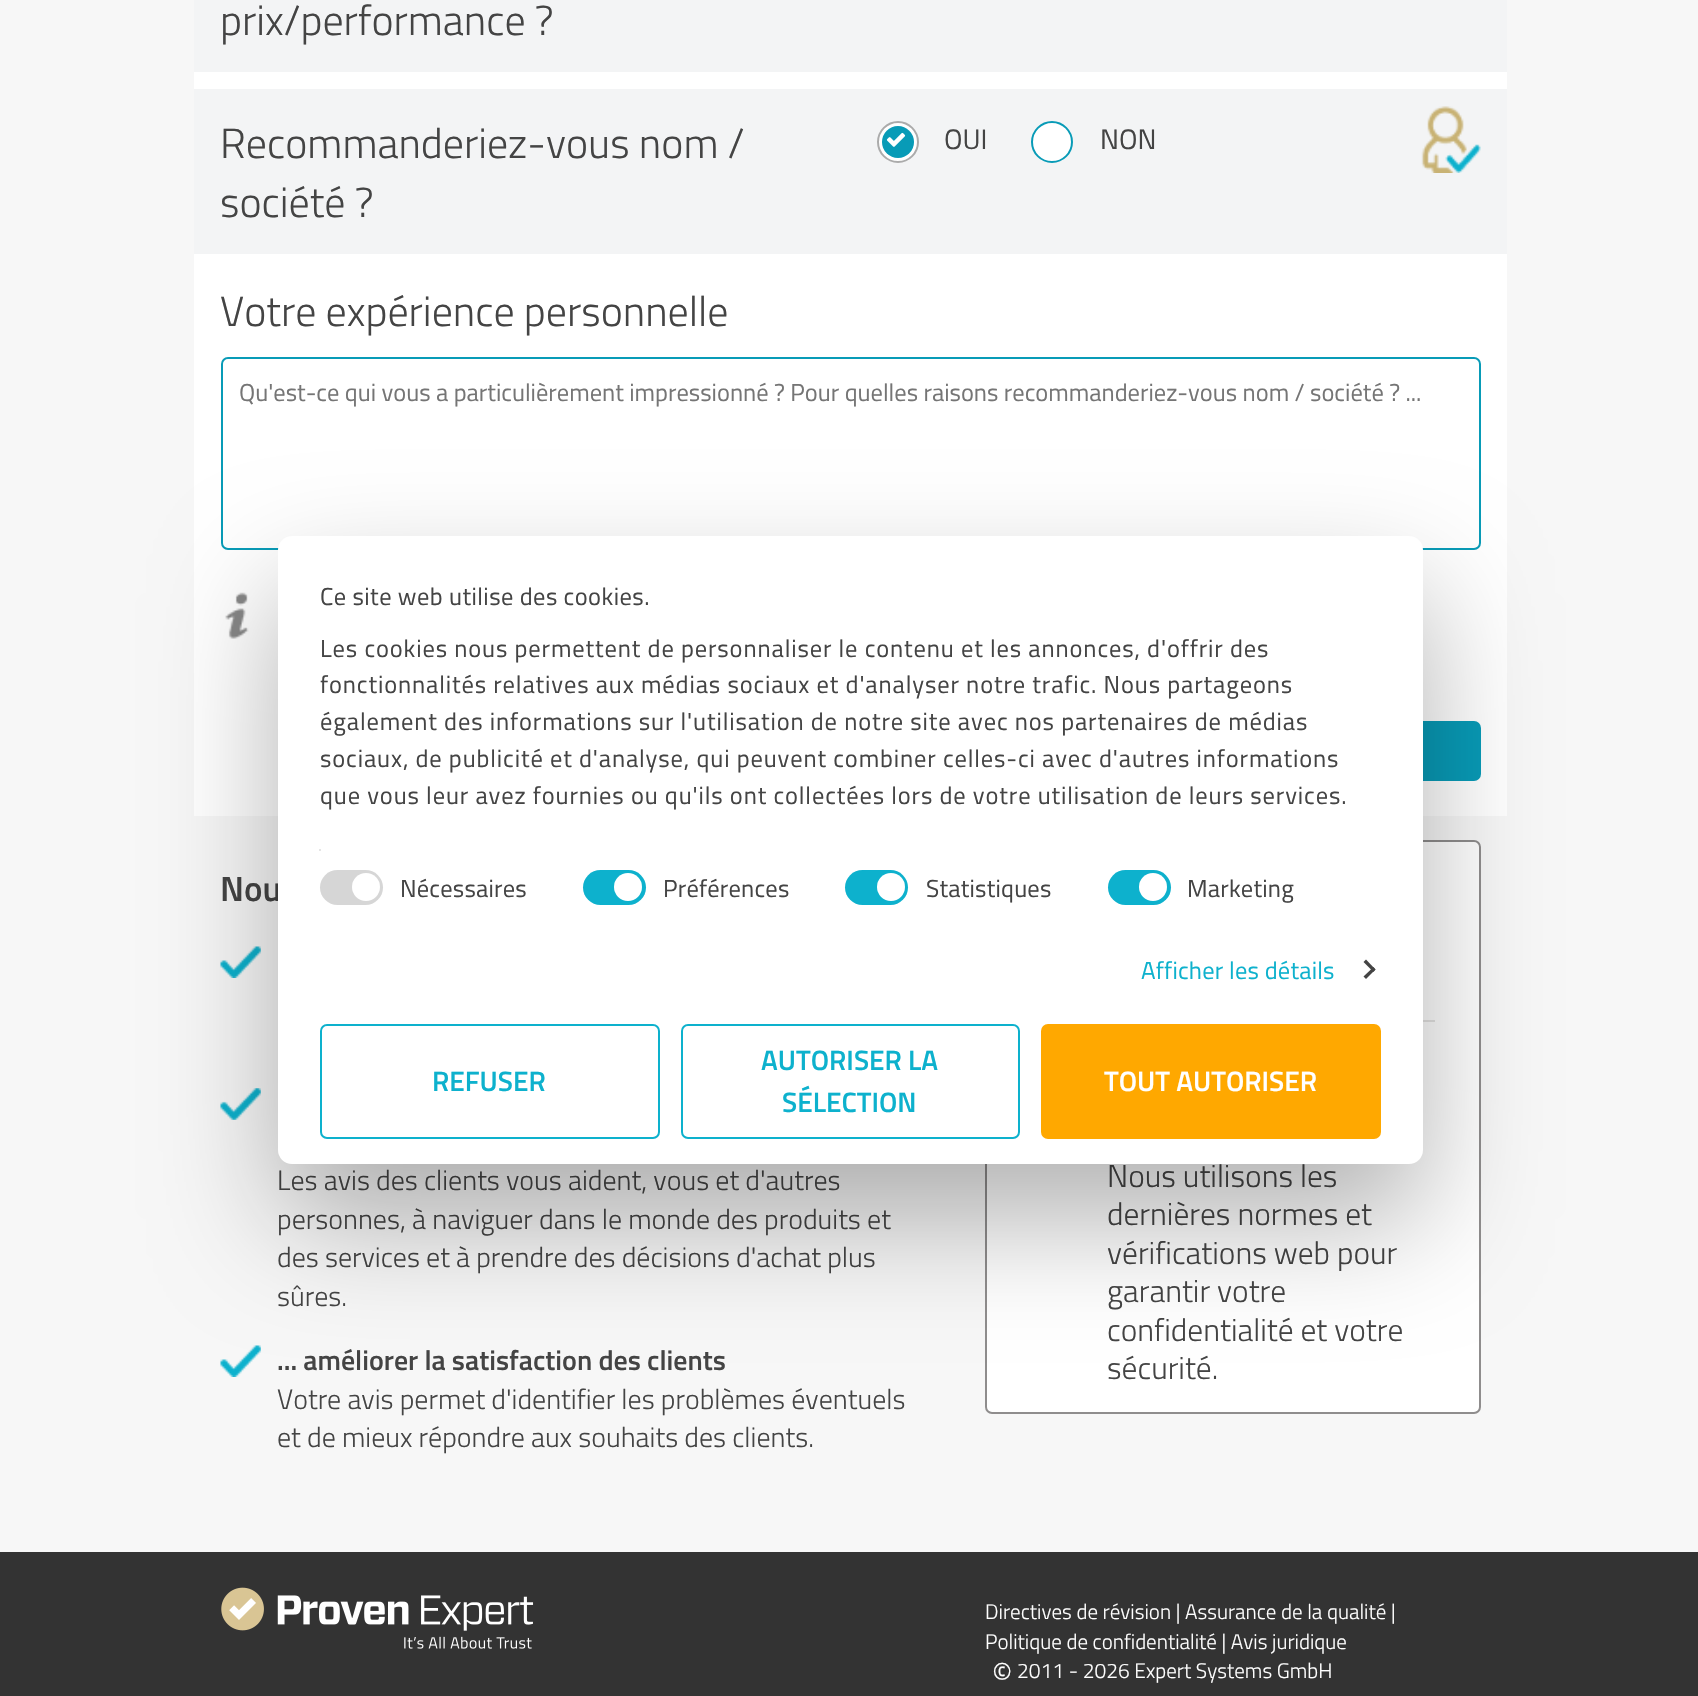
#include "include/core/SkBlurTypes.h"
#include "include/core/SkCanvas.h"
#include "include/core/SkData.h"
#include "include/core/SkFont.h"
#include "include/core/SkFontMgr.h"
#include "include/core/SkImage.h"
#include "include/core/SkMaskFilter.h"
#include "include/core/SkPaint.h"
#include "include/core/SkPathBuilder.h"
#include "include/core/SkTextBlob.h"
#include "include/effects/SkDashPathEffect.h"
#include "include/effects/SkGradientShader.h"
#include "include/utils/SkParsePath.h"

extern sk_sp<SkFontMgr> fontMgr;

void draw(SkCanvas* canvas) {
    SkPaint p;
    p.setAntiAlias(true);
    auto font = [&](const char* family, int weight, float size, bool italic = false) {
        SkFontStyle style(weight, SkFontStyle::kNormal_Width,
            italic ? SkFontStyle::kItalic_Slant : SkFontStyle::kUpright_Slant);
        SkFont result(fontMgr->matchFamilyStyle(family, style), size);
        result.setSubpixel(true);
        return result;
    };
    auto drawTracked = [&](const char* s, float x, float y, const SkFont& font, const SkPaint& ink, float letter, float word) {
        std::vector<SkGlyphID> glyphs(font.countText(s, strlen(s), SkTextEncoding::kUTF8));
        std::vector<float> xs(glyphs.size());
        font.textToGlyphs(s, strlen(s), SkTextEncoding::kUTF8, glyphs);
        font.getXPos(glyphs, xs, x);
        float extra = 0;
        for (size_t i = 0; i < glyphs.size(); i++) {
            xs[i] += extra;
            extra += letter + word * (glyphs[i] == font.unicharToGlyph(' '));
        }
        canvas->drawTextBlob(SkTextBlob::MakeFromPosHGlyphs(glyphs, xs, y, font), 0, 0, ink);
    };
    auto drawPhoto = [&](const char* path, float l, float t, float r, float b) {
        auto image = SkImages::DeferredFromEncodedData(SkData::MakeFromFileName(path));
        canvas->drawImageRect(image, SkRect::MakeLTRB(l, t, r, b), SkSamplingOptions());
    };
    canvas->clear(0xFFF7F7F7);
    p.setColor(0xFFFFFFFF);
    canvas->drawRect(SkRect::MakeLTRB(194, 72, 1507, 816), p);
    p.setColor(0xFFF3F4F5);
    canvas->drawRect(SkRect::MakeLTRB(194, 0, 1507, 72), p);
    auto font1 = font("Titillium Web", 300, 42);
    p.setColor(0xFF444444);
    canvas->drawString("prix/performance ?", 220, 35, font1, p);
    p.setColor(0xFFF3F4F5);
    canvas->drawRect(SkRect::MakeLTRB(194, 89, 1507, 254), p);
    p.setColor(0xFF444444);
    canvas->drawString("Recommanderiez-vous nom /", 220, 158, font1, p);
    canvas->drawString("société ?", 220, 217, font1, p);
    p.setColor(0xFFFFFFFF);
    canvas->drawCircle(898, 142, 20, p);
    p.setStyle(SkPaint::kStroke_Style);
    p.setStrokeWidth(2);
    p.setColor(0xFFABABAB);
    canvas->drawCircle(898, 142, 20, p);
    p.setStyle(SkPaint::kFill_Style);
    p.setColor(0xFF089BB7);
    canvas->drawCircle(898, 142, 16, p);
    drawPhoto("media/1.png", 886, 132, 906, 147);
    auto font2 = font("Titillium Web", 400, 28);
    p.setColor(0xFF444444);
    canvas->drawString("OUI", 944, 149, font2, p);
    p.setColor(0xFFFFFFFF);
    canvas->drawCircle(1052, 142, 20, p);
    p.setStyle(SkPaint::kStroke_Style);
    p.setColor(0xFF089BB7);
    canvas->drawCircle(1052, 142, 20, p);
    p.setStyle(SkPaint::kFill_Style);
    p.setColor(0xFF444444);
    canvas->drawString("NON", 1100, 149, font2, p);
    drawPhoto("media/2.png", 1421, 106, 1481, 173);
    canvas->drawString("Votre expérience personnelle", 220, 326, font1, p);
    p.setStyle(SkPaint::kStroke_Style);
    p.setColor(0xFF089BB7);
    canvas->drawRoundRect(SkRect::MakeLTRB(222, 358, 1480, 549), 6, 6, p);
    auto font3 = font("Titillium Web", 400, 24.5f);
    p.setStyle(SkPaint::kFill_Style);
    p.setColor(0xFF757575);
    canvas->drawString("Qu'est-ce qui vous a particulièrement impressionné ? Pour quelles raisons recommanderiez-vous nom / société ? ...", 239, 401, font3, p);
    drawPhoto("media/3.png", 225, 592, 249, 639);
    p.setColor(0xFF089BB7);
    canvas->drawRoundRect(SkRect::MakeLTRB(1096, 721, 1481, 781), 7, 7, p);
    auto font4 = font("Titillium Web", 600, 35);
    p.setColor(0xFF444444);
    canvas->drawString("Nou", 220, 901, font4, p);
    drawPhoto("media/4.png", 220, 946, 261, 978);
    drawPhoto("media/5.png", 220, 1088, 261, 1120);
    auto font5 = font("Titillium Web", 300, 28);
    {
        const struct { const char* s; float x, y; } items[] = {
            {"Les avis des clients vous aident, vous et d'autres", 277, 1190},
            {"personnes, à naviguer dans le monde des produits et", 277, 1229},
            {"des services et à prendre des décisions d'achat plus", 277, 1267},
            {"sûres.", 277, 1306},
        };
        for (auto [s, x, y] : items) {
            canvas->drawString(s, x, y, font5, p);
        }
    }
    drawPhoto("media/4.png", 220, 1345, 261, 1377);
    auto font6 = font("Titillium Web", 600, 28);
    canvas->drawString("... améliorer la satisfaction des clients", 277, 1370, font6, p);
    canvas->drawString("Votre avis permet d'identifier les problèmes éventuels", 277, 1409, font5, p);
    canvas->drawString("et de mieux répondre aux souhaits des clients.", 277, 1447, font5, p);
    p.setColor(0xFFFFFFFF);
    canvas->drawRoundRect(SkRect::MakeLTRB(986, 841, 1480, 1413), 6, 6, p);
    p.setStyle(SkPaint::kStroke_Style);
    p.setColor(0xFF8F8D8D);
    canvas->drawRoundRect(SkRect::MakeLTRB(986, 841, 1480, 1413), 6, 6, p);
    p.setStyle(SkPaint::kFill_Style);
    p.setColor(0xFFE5E4E3);
    canvas->drawRect(SkRect::MakeLTRB(1423, 1020, 1435, 1022), p);
    auto font7 = font("Titillium Web", 300, 31.5f);
    p.setColor(0xFF444444);
    {
        const struct { const char* s; float x, y; } items[] = {
            {"Nous utilisons les", 1107, 1187},
            {"dernières normes et", 1107, 1225},
            {"vérifications web pour", 1107, 1264},
            {"garantir votre", 1107, 1302},
            {"confidentialité et votre", 1107, 1341},
            {"sécurité.", 1107, 1379},
        };
        for (auto [s, x, y] : items) {
            canvas->drawString(s, x, y, font7, p);
        }
    }
    p.setColor(0x4D000000);
    p.setMaskFilter(SkMaskFilter::MakeBlur(kNormal_SkBlurStyle, 59.5f));
    canvas->drawRoundRect(SkRect::MakeLTRB(278, 592, 1423, 1220), 14, 14, p);
    p.setMaskFilter(nullptr);
    p.setColor(0xFFFFFFFF);
    canvas->drawRoundRect(SkRect::MakeLTRB(278, 536, 1423, 1164), 14, 14, p);
    p.setColor(0xFF444444);
    drawTracked("Ce site web utilise des cookies.", 320, 605, font3, p, 0.45f, 0);
    {
        const struct { const char* s; float x, y; } items[] = {
            {"Les cookies nous permettent de personnaliser le contenu et les annonces, d'offrir des", 320, 657},
            {"fonctionnalités relatives aux médias sociaux et d'analyser notre trafic. Nous partageons", 320, 693},
            {"également des informations sur l'utilisation de notre site avec nos partenaires de médias", 320, 730},
            {"sociaux, de publicité et d'analyse, qui peuvent combiner celles-ci avec d'autres informations", 320, 767},
            {"que vous leur avez fournies ou qu'ils ont collectées lors de votre utilisation de leurs services.", 320, 804},
        };
        for (auto [s, x, y] : items) {
            drawTracked(s, x, y, font3, p, 0.88f, 0);
        }
    }
    p.setColor(0xFFE5E5E5);
    canvas->drawRect(SkRect::MakeLTRB(319, 849, 321, 851), p);
    p.setColor(0xFFD6D6D6);
    canvas->drawRoundRect(SkRect::MakeLTRB(320, 870, 383, 905), 17.5f, 17.5f, p);
    p.setColor(0xFFFFFFFF);
    canvas->drawCircle(366, 887, 14, p);
    p.setColor(0xFF444444);
    drawTracked("Nécessaires", 400, 897, font3, p, 0.2f, 0);
    p.setColor(0xFF0DB1CD);
    canvas->drawRoundRect(SkRect::MakeLTRB(583, 870, 646, 905), 17.5f, 17.5f, p);
    p.setColor(0xFFFFFFFF);
    canvas->drawCircle(628, 887, 14, p);
    p.setColor(0xFF444444);
    drawTracked("Préférences", 663, 897, font3, p, 0.2f, 0);
    p.setColor(0xFF0DB1CD);
    canvas->drawRoundRect(SkRect::MakeLTRB(845, 870, 908, 905), 17.5f, 17.5f, p);
    p.setColor(0xFFFFFFFF);
    canvas->drawCircle(891, 887, 14, p);
    p.setColor(0xFF444444);
    drawTracked("Statistiques", 926, 897, font3, p, 0.2f, 0);
    p.setColor(0xFF0DB1CD);
    canvas->drawRoundRect(SkRect::MakeLTRB(1108, 870, 1171, 905), 17.5f, 17.5f, p);
    p.setColor(0xFFFFFFFF);
    canvas->drawCircle(1153, 887, 14, p);
    p.setColor(0xFF444444);
    drawTracked("Marketing", 1187, 897, font3, p, 0.2f, 0);
    p.setColor(0xFF0DB1CD);
    drawTracked("Afficher les détails", 1141, 979, font3, p, 0.2f, 0);
    p.setColor(0xFF444444);
    canvas->drawPath(SkPathBuilder().moveTo(1366, 959.5f).lineTo(1375.5f, 969.5f).lineTo(1373.5f, 972).lineTo(1363.5f, 962).close().detach(), p);
    canvas->drawPath(SkPathBuilder().moveTo(1373.5f, 967).lineTo(1375.5f, 969.5f).lineTo(1366, 979).lineTo(1363.5f, 976.5f).close().detach(), p);
    p.setStyle(SkPaint::kStroke_Style);
    p.setColor(0xFF0DB1CD);
    canvas->drawRoundRect(SkRect::MakeLTRB(321, 1025, 659, 1138), 6, 6, p);
    p.setStyle(SkPaint::kFill_Style);
    canvas->drawString("REFUSER", 432, 1091, font6, p);
    p.setStyle(SkPaint::kStroke_Style);
    canvas->drawRoundRect(SkRect::MakeLTRB(682, 1025, 1019, 1138), 6, 6, p);
    p.setStyle(SkPaint::kFill_Style);
    canvas->drawString("AUTORISER LA", 761, 1070, font6, p);
    canvas->drawString("SÉLECTION", 782, 1112, font6, p);
    p.setColor(0xFFFFA800);
    canvas->drawRoundRect(SkRect::MakeLTRB(1041, 1024, 1381, 1139), 7, 7, p);
    p.setColor(0xFFFFFFFF);
    canvas->drawString("TOUT AUTORISER", 1104, 1091, font6, p);
    p.setColor(0xFF333333);
    canvas->drawRect(SkRect::MakeLTRB(0, 1552, 1698, 1696), p);
    drawPhoto("media/6.png", 221, 1587, 534, 1649);
    auto font8 = font("Titillium Web", 300, 21);
    p.setColor(0xFFFFFFFF);
    canvas->drawString("Directives de révision | Assurance de la qualité |", 985, 1619, font8, p);
    canvas->drawString("Politique de confidentialité | Avis juridique", 985, 1649, font8, p);
    canvas->drawString("©", 992, 1685, font7, p);
    canvas->drawString("2011 - 2026 Expert Systems GmbH", 1017, 1678, font8, p);
}
